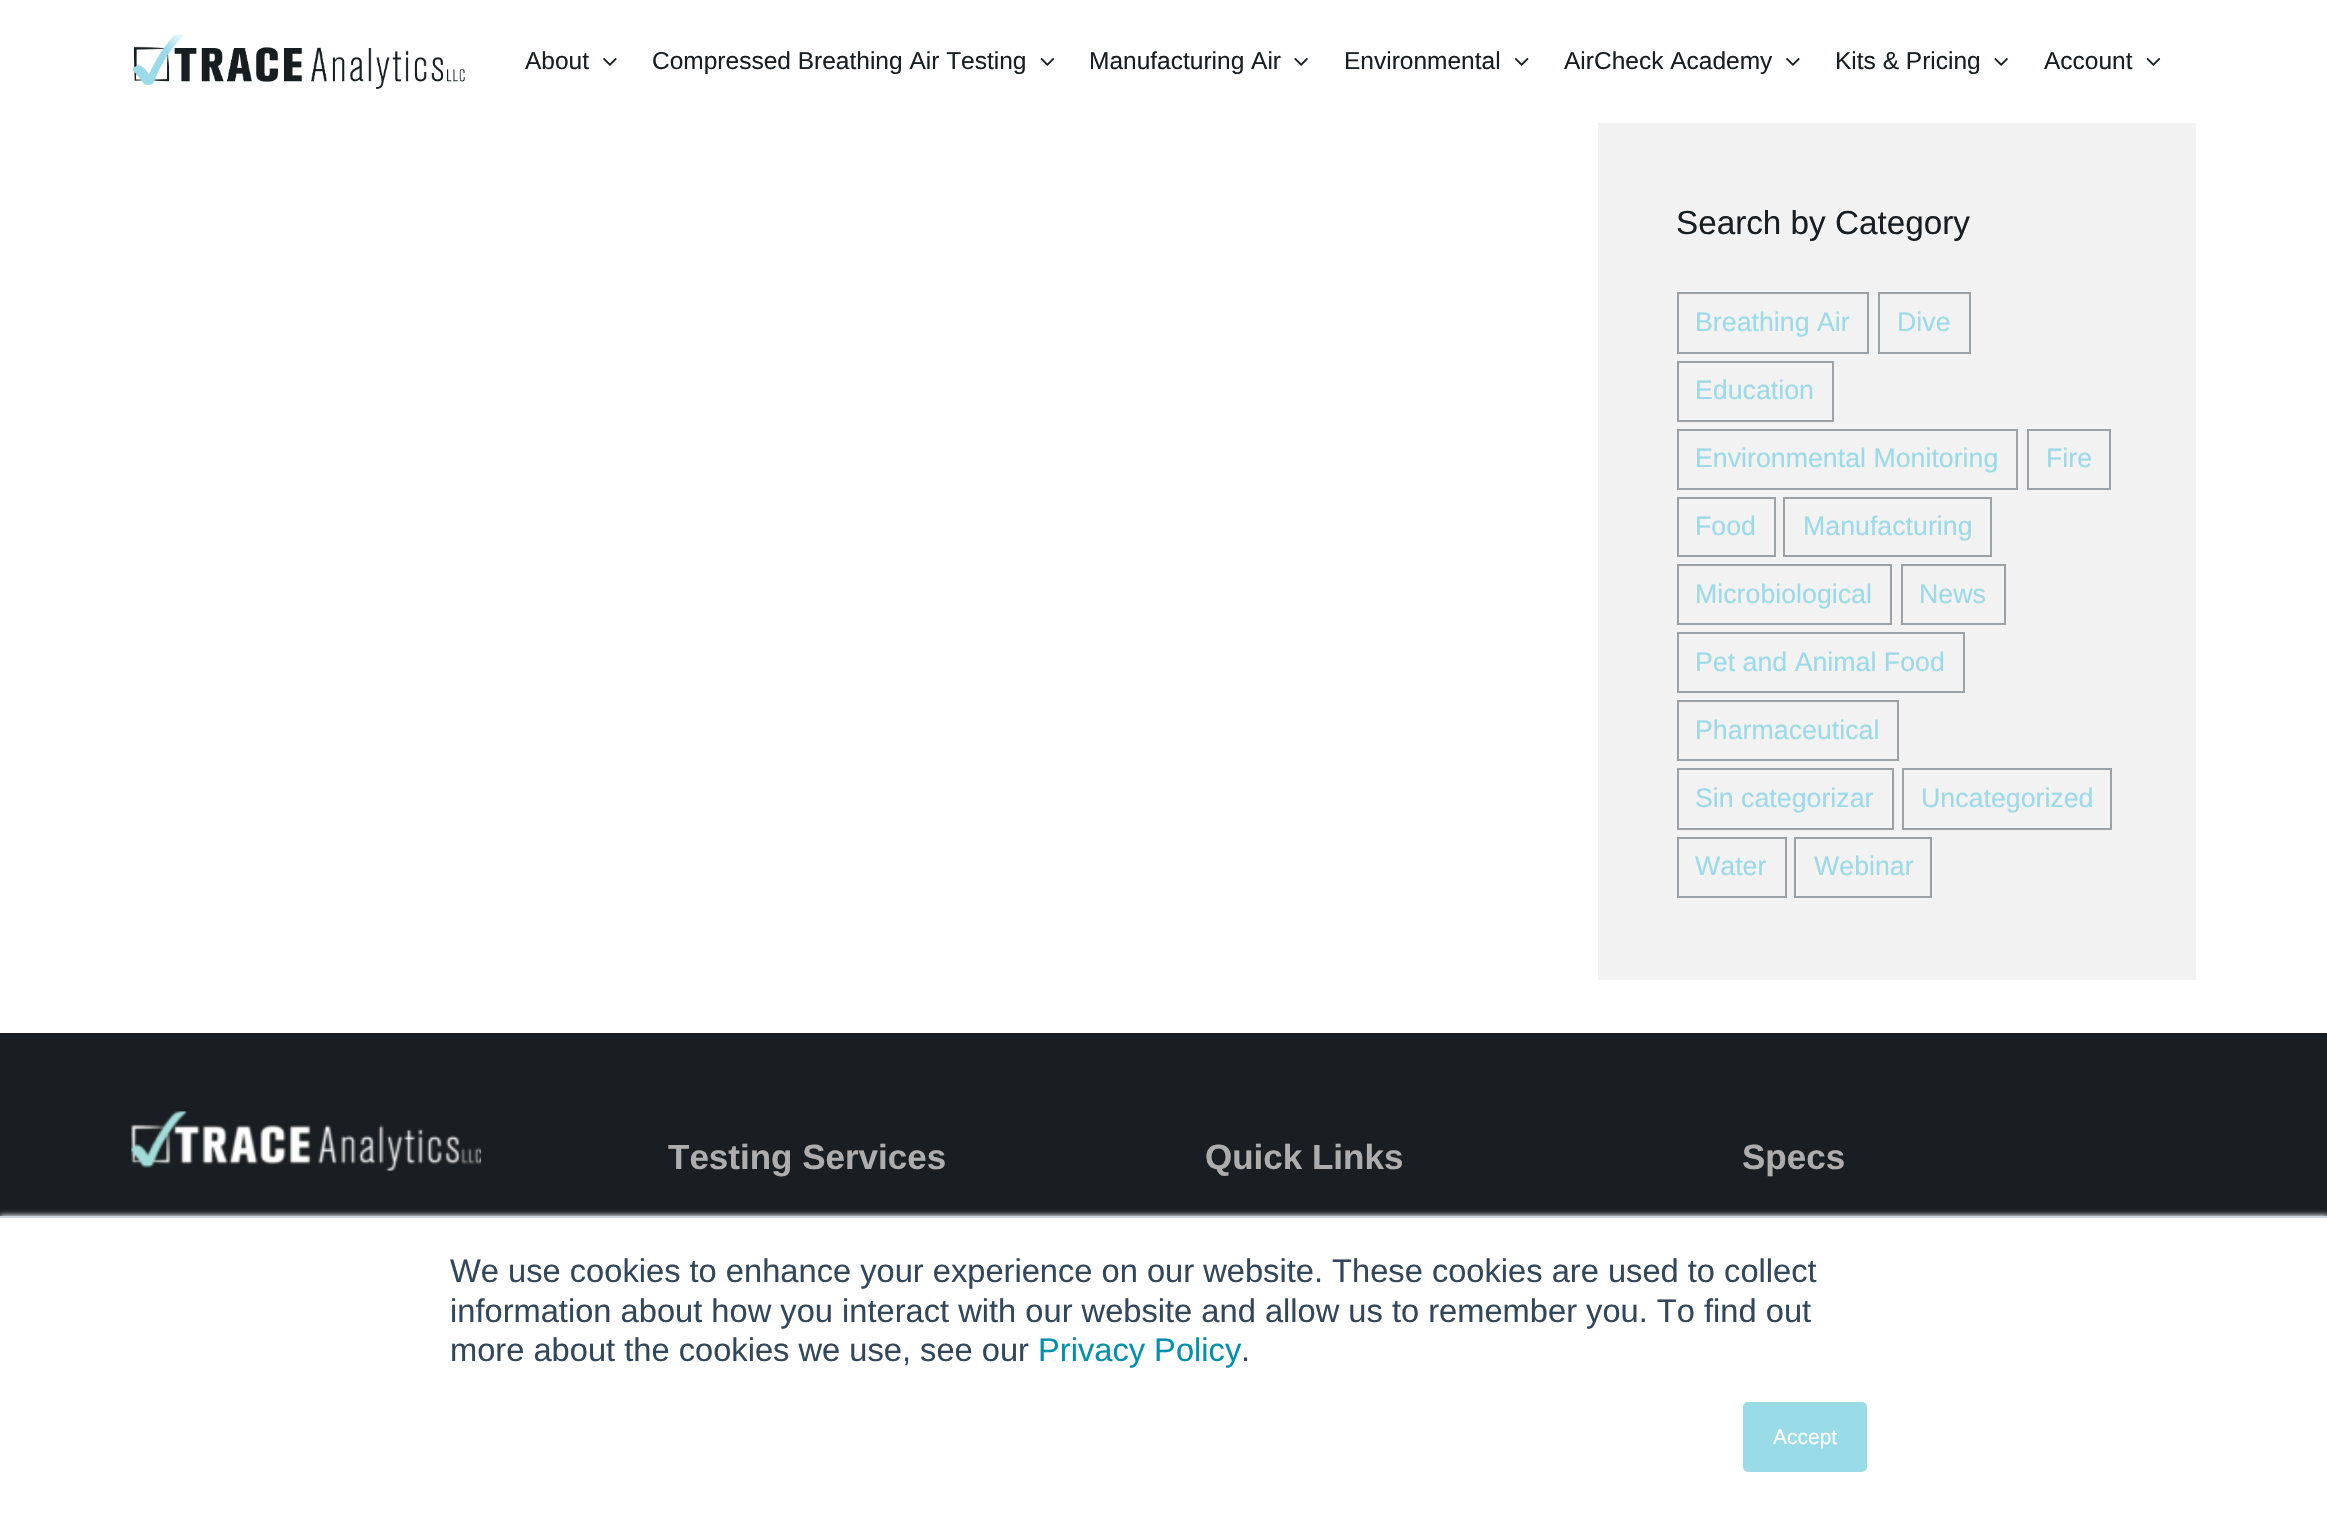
#include "include/core/SkBlurTypes.h"
#include "include/core/SkCanvas.h"
#include "include/core/SkData.h"
#include "include/core/SkFont.h"
#include "include/core/SkFontMgr.h"
#include "include/core/SkImage.h"
#include "include/core/SkMaskFilter.h"
#include "include/core/SkPaint.h"
#include "include/core/SkPathBuilder.h"
#include "include/core/SkTextBlob.h"
#include "include/effects/SkDashPathEffect.h"
#include "include/effects/SkGradientShader.h"
#include "include/utils/SkParsePath.h"

extern sk_sp<SkFontMgr> fontMgr;

void draw(SkCanvas* canvas) {
    SkPaint p;
    p.setAntiAlias(true);
    auto font = [&](const char* family, int weight, float size, bool italic = false) {
        SkFontStyle style(weight, SkFontStyle::kNormal_Width,
            italic ? SkFontStyle::kItalic_Slant : SkFontStyle::kUpright_Slant);
        SkFont result(fontMgr->matchFamilyStyle(family, style), size);
        result.setSubpixel(true);
        return result;
    };
    auto drawPhoto = [&](const char* path, float l, float t, float r, float b) {
        auto image = SkImages::DeferredFromEncodedData(SkData::MakeFromFileName(path));
        canvas->drawImageRect(image, SkRect::MakeLTRB(l, t, r, b), SkSamplingOptions());
    };
    canvas->clear(0xFFFFFFFF);
    drawPhoto("media/1.png", 132, 34, 465, 89);
    auto font1 = font("Liberation Sans", 400, 24.5f);
    p.setColor(0xFF181E21);
    canvas->drawString("About", 525, 69, font1, p);
    drawPhoto("media/2.png", 603, 58, 617, 66);
    canvas->drawString("Compressed Breathing Air Testing", 652, 69, font1, p);
    drawPhoto("media/3.png", 1040, 58, 1055, 66);
    canvas->drawString("Manufacturing Air", 1089, 69, font1, p);
    drawPhoto("media/4.png", 1294, 58, 1308, 66);
    canvas->drawString("Environmental", 1344, 69, font1, p);
    drawPhoto("media/5.png", 1514, 58, 1529, 66);
    canvas->drawString("AirCheck Academy", 1564, 69, font1, p);
    drawPhoto("media/2.png", 1786, 58, 1800, 66);
    canvas->drawString("Kits & Pricing", 1835, 69, font1, p);
    drawPhoto("media/4.png", 1994, 58, 2008, 66);
    canvas->drawString("Account", 2044, 69, font1, p);
    drawPhoto("media/3.png", 2146, 58, 2161, 66);
    p.setColor(0xFFF2F2F2);
    canvas->drawRect(SkRect::MakeLTRB(1598, 123, 2196, 980), p);
    auto font2 = font("Liberation Sans", 400, 33.25f);
    p.setColor(0xFF181E21);
    canvas->drawString("Search by Category", 1676, 234, font2, p);
    p.setStyle(SkPaint::kStroke_Style);
    p.setStrokeWidth(2);
    p.setColor(0xFF9CA1A6);
    canvas->drawRect(SkRect::MakeLTRB(1678, 293, 1868, 353), p);
    auto font3 = font("Liberation Sans", 400, 26.75f);
    p.setStyle(SkPaint::kFill_Style);
    p.setColor(0xFF9CDAE7);
    canvas->drawString("Breathing Air", 1695, 331, font3, p);
    p.setStyle(SkPaint::kStroke_Style);
    p.setColor(0xFF9CA1A6);
    canvas->drawRect(SkRect::MakeLTRB(1879, 293, 1970, 353), p);
    p.setStyle(SkPaint::kFill_Style);
    p.setColor(0xFF9CDAE7);
    canvas->drawString("Dive", 1897, 331, font3, p);
    p.setStyle(SkPaint::kStroke_Style);
    p.setColor(0xFF9CA1A6);
    canvas->drawRect(SkRect::MakeLTRB(1678, 362, 1833, 421), p);
    p.setStyle(SkPaint::kFill_Style);
    p.setColor(0xFF9CDAE7);
    canvas->drawString("Education", 1695, 399, font3, p);
    p.setStyle(SkPaint::kStroke_Style);
    p.setColor(0xFF9CA1A6);
    canvas->drawRect(SkRect::MakeLTRB(1678, 430, 2017, 489), p);
    p.setStyle(SkPaint::kFill_Style);
    p.setColor(0xFF9CDAE7);
    canvas->drawString("Environmental Monitoring", 1695, 467, font3, p);
    p.setStyle(SkPaint::kStroke_Style);
    p.setColor(0xFF9CA1A6);
    canvas->drawRect(SkRect::MakeLTRB(2028, 430, 2110, 489), p);
    p.setStyle(SkPaint::kFill_Style);
    p.setColor(0xFF9CDAE7);
    canvas->drawString("Fire", 2046, 467, font3, p);
    p.setStyle(SkPaint::kStroke_Style);
    p.setColor(0xFF9CA1A6);
    canvas->drawRect(SkRect::MakeLTRB(1678, 498, 1775, 556), p);
    p.setStyle(SkPaint::kFill_Style);
    p.setColor(0xFF9CDAE7);
    canvas->drawString("Food", 1695, 535, font3, p);
    p.setStyle(SkPaint::kStroke_Style);
    p.setColor(0xFF9CA1A6);
    canvas->drawRect(SkRect::MakeLTRB(1784, 498, 1991, 556), p);
    p.setStyle(SkPaint::kFill_Style);
    p.setColor(0xFF9CDAE7);
    canvas->drawString("Manufacturing", 1803, 535, font3, p);
    p.setStyle(SkPaint::kStroke_Style);
    p.setColor(0xFF9CA1A6);
    canvas->drawRect(SkRect::MakeLTRB(1678, 565, 1891, 624), p);
    p.setStyle(SkPaint::kFill_Style);
    p.setColor(0xFF9CDAE7);
    canvas->drawString("Microbiological", 1695, 603, font3, p);
    p.setStyle(SkPaint::kStroke_Style);
    p.setColor(0xFF9CA1A6);
    canvas->drawRect(SkRect::MakeLTRB(1902, 565, 2005, 624), p);
    p.setStyle(SkPaint::kFill_Style);
    p.setColor(0xFF9CDAE7);
    canvas->drawString("News", 1919, 603, font3, p);
    p.setStyle(SkPaint::kStroke_Style);
    p.setColor(0xFF9CA1A6);
    canvas->drawRect(SkRect::MakeLTRB(1678, 633, 1964, 692), p);
    p.setStyle(SkPaint::kFill_Style);
    p.setColor(0xFF9CDAE7);
    canvas->drawString("Pet and Animal Food", 1695, 671, font3, p);
    p.setStyle(SkPaint::kStroke_Style);
    p.setColor(0xFF9CA1A6);
    canvas->drawRect(SkRect::MakeLTRB(1678, 701, 1898, 760), p);
    p.setStyle(SkPaint::kFill_Style);
    p.setColor(0xFF9CDAE7);
    canvas->drawString("Pharmaceutical", 1695, 739, font3, p);
    p.setStyle(SkPaint::kStroke_Style);
    p.setColor(0xFF9CA1A6);
    canvas->drawRect(SkRect::MakeLTRB(1678, 769, 1893, 829), p);
    p.setStyle(SkPaint::kFill_Style);
    p.setColor(0xFF9CDAE7);
    canvas->drawString("Sin categorizar", 1695, 807, font3, p);
    p.setStyle(SkPaint::kStroke_Style);
    p.setColor(0xFF9CA1A6);
    canvas->drawRect(SkRect::MakeLTRB(1903, 769, 2111, 829), p);
    p.setStyle(SkPaint::kFill_Style);
    p.setColor(0xFF9CDAE7);
    canvas->drawString("Uncategorized", 1921, 807, font3, p);
    p.setStyle(SkPaint::kStroke_Style);
    p.setColor(0xFF9CA1A6);
    canvas->drawRect(SkRect::MakeLTRB(1678, 838, 1786, 897), p);
    p.setStyle(SkPaint::kFill_Style);
    p.setColor(0xFF9CDAE7);
    canvas->drawString("Water", 1695, 875, font3, p);
    p.setStyle(SkPaint::kStroke_Style);
    p.setColor(0xFF9CA1A6);
    canvas->drawRect(SkRect::MakeLTRB(1795, 838, 1931, 897), p);
    p.setStyle(SkPaint::kFill_Style);
    p.setColor(0xFF9CDAE7);
    canvas->drawString("Webinar", 1814, 875, font3, p);
    p.setColor(0xFF181E21);
    canvas->drawRect(SkRect::MakeLTRB(0, 1033, 2327, 1216), p);
    drawPhoto("media/6.png", 131, 1111, 482, 1171);
    auto font4 = font("Liberation Sans", 700, 35);
    p.setColor(0xFFADADAD);
    {
        const struct { const char* s; float x, y; } items[] = {
            {"Testing Services", 668, 1169},
            {"Quick Links", 1205, 1169},
            {"Specs", 1742, 1169},
        };
        for (auto [s, x, y] : items) {
            canvas->drawString(s, x, y, font4, p);
        }
    }
    p.setColor(0xFFEAF0F6);
    p.setMaskFilter(SkMaskFilter::MakeBlur(kNormal_SkBlurStyle, 2.5f));
    canvas->drawRect(SkRect::MakeLTRB(0, 1215, 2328, 1516), p);
    p.setMaskFilter(nullptr);
    p.setColor(0xFFFFFFFF);
    canvas->drawRect(SkRect::MakeLTRB(0, 1218, 2327, 1517), p);
    p.setColor(0xFFCBD6E2);
    canvas->drawRect(SkRect::MakeLTRB(0, 1216, 2327, 1218), p);
    auto font5 = font("Liberation Sans", 400, 32.65f);
    p.setColor(0xFF33475B);
    {
        const struct { const char* s; float x, y; } items[] = {
            {"We use cookies to enhance your experience on our website. These cookies are used to collect", 450, 1282},
            {"information about how you interact with our website and allow us to remember you. To find out", 450, 1322},
            {"more about the cookies we use, see our", 450, 1361},
        };
        for (auto [s, x, y] : items) {
            canvas->drawString(s, x, y, font5, p);
        }
    }
    p.setColor(0xFF0091AE);
    canvas->drawString("Privacy Policy", 1038, 1361, font5, p);
    p.setColor(0xFF33475B);
    canvas->drawString(".", 1241, 1361, font5, p);
    p.setColor(0xFF9ADBE8);
    canvas->drawRoundRect(SkRect::MakeLTRB(1744, 1403, 1866, 1471), 4, 4, p);
    p.setStyle(SkPaint::kStroke_Style);
    canvas->drawRoundRect(SkRect::MakeLTRB(1744, 1403, 1866, 1471), 4, 4, p);
    auto font6 = font("Liberation Sans", 400, 21);
    p.setStyle(SkPaint::kFill_Style);
    p.setColor(0xFFFFFFFF);
    canvas->drawString("Accept", 1773, 1444, font6, p);
}
